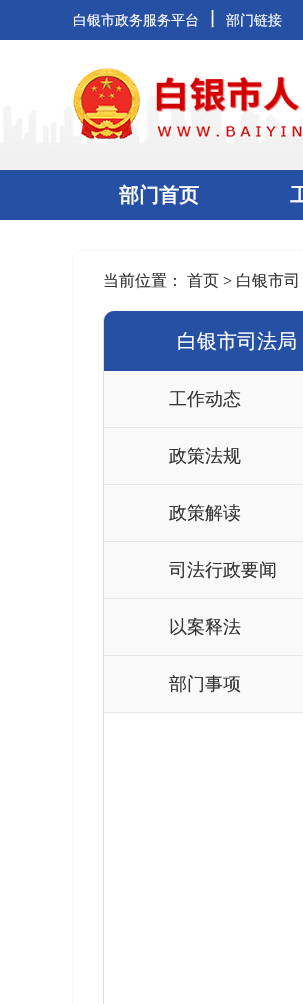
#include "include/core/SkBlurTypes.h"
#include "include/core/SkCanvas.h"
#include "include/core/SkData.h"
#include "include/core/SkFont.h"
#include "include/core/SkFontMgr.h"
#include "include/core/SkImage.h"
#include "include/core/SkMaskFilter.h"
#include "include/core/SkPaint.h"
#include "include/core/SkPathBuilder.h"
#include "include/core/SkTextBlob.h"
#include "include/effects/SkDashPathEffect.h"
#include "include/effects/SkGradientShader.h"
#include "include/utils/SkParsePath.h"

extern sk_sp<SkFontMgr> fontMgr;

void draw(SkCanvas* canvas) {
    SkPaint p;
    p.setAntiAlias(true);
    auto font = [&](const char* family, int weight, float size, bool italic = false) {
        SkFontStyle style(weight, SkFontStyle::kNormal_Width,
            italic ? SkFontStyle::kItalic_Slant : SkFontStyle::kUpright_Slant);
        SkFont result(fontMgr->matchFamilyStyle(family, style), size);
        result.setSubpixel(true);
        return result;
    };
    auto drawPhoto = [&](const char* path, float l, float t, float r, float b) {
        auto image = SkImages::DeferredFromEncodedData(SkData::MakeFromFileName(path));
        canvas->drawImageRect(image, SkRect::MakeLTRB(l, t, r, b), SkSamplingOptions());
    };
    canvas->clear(0xFFFFFFFF);
    p.setColor(0xFF2550A4);
    canvas->drawRect(SkRect::MakeLTRB(0, 0, 303, 40), p);
    auto font1 = font("WenQuanYi Zen Hei", 500, 14);
    p.setColor(0xFFFFFFFF);
    canvas->drawString("白银市政务服务平台", 73, 25, font1, p);
    auto font2 = font("WenQuanYi Zen Hei", 500, 18);
    canvas->drawString("丨", 204, 25, font2, p);
    canvas->drawString("部门链接", 226, 25, font1, p);
    drawPhoto("media/1.png", 0, 71, 303, 170);
    drawPhoto("media/2.png", 73, 68, 302, 139);
    p.setColor(0xFF2550A4);
    canvas->drawRect(SkRect::MakeLTRB(0, 170, 303, 220), p);
    auto font3 = font("WenQuanYi Zen Hei", 700, 20);
    p.setColor(0xFFFFFFFF);
    canvas->drawString("部门首页", 119, 202, font3, p);
    canvas->drawString("工", 290, 202, font3, p);
    p.setStyle(SkPaint::kStroke_Style);
    p.setStrokeWidth(1);
    p.setColor(0xFFF6F6F6);
    canvas->drawRoundRect(SkRect::MakeLTRB(72.5f, 250.5f, 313.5f, 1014.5f), 9.5f, 9.5f, p);
    auto font4 = font("WenQuanYi Zen Hei", 500, 16);
    p.setStyle(SkPaint::kFill_Style);
    p.setColor(0xFF333333);
    canvas->drawString("当前位置：", 103, 286, font4, p);
    canvas->drawString("首页", 187, 286, font4, p);
    auto font5 = font("Liberation Serif", 400, 16);
    canvas->drawString(">", 223, 286, font5, p);
    canvas->drawString("白银市司", 236, 286, font4, p);
    p.setColor(0xFFDEDEDE);
    canvas->drawPath(SkPathBuilder(SkPathFillType::kEvenOdd).moveTo(113, 311).lineTo(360, 311).cubicTo(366, 311, 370, 315, 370, 321).lineTo(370, 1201).cubicTo(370, 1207, 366, 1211, 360, 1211).lineTo(113, 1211).cubicTo(107, 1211, 103, 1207, 103, 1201).lineTo(103, 321).cubicTo(103, 315, 107, 311, 113, 311).close().moveTo(113, 311).lineTo(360, 311).cubicTo(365, 311, 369, 315, 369, 321).lineTo(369, 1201).cubicTo(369, 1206, 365, 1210, 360, 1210).lineTo(113, 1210).cubicTo(108, 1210, 104, 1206, 104, 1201).lineTo(104, 321).cubicTo(104, 315, 108, 311, 113, 311).close().detach(), p);
    p.setColor(0xFF2550A4);
    canvas->drawPath(SkPathBuilder().moveTo(114, 311).lineTo(303, 311).cubicTo(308.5f, 311, 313, 315.5f, 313, 321).lineTo(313, 371).lineTo(104, 371).lineTo(104, 321).cubicTo(104, 315.5f, 108.5f, 311, 114, 311).close().detach(), p);
    auto font6 = font("WenQuanYi Zen Hei", 500, 20);
    p.setColor(0xFFFFFFFF);
    canvas->drawString("白银市司法局", 177, 348, font6, p);
    p.setColor(0xFFF9F9F9);
    canvas->drawRect(SkRect::MakeLTRB(104, 371, 303, 712), p);
    p.setColor(0xFFE5E5E5);
    canvas->drawRect(SkRect::MakeLTRB(104, 427, 303, 428), p);
    p.setColor(0xFF333333);
    canvas->drawString("工作动态", 169, 405, font2, p);
    p.setColor(0xFFE5E5E5);
    canvas->drawRect(SkRect::MakeLTRB(104, 484, 303, 485), p);
    p.setColor(0xFF333333);
    canvas->drawString("政策法规", 169, 462, font2, p);
    p.setColor(0xFFE5E5E5);
    canvas->drawRect(SkRect::MakeLTRB(104, 541, 303, 542), p);
    p.setColor(0xFF333333);
    canvas->drawString("政策解读", 169, 519, font2, p);
    p.setColor(0xFFE5E5E5);
    canvas->drawRect(SkRect::MakeLTRB(104, 598, 303, 599), p);
    p.setColor(0xFF333333);
    canvas->drawString("司法行政要闻", 169, 576, font2, p);
    p.setColor(0xFFE5E5E5);
    canvas->drawRect(SkRect::MakeLTRB(104, 655, 303, 656), p);
    p.setColor(0xFF333333);
    canvas->drawString("以案释法", 169, 633, font2, p);
    p.setColor(0xFFE5E5E5);
    canvas->drawRect(SkRect::MakeLTRB(104, 712, 303, 713), p);
    p.setColor(0xFF333333);
    canvas->drawString("部门事项", 169, 690, font2, p);
}
